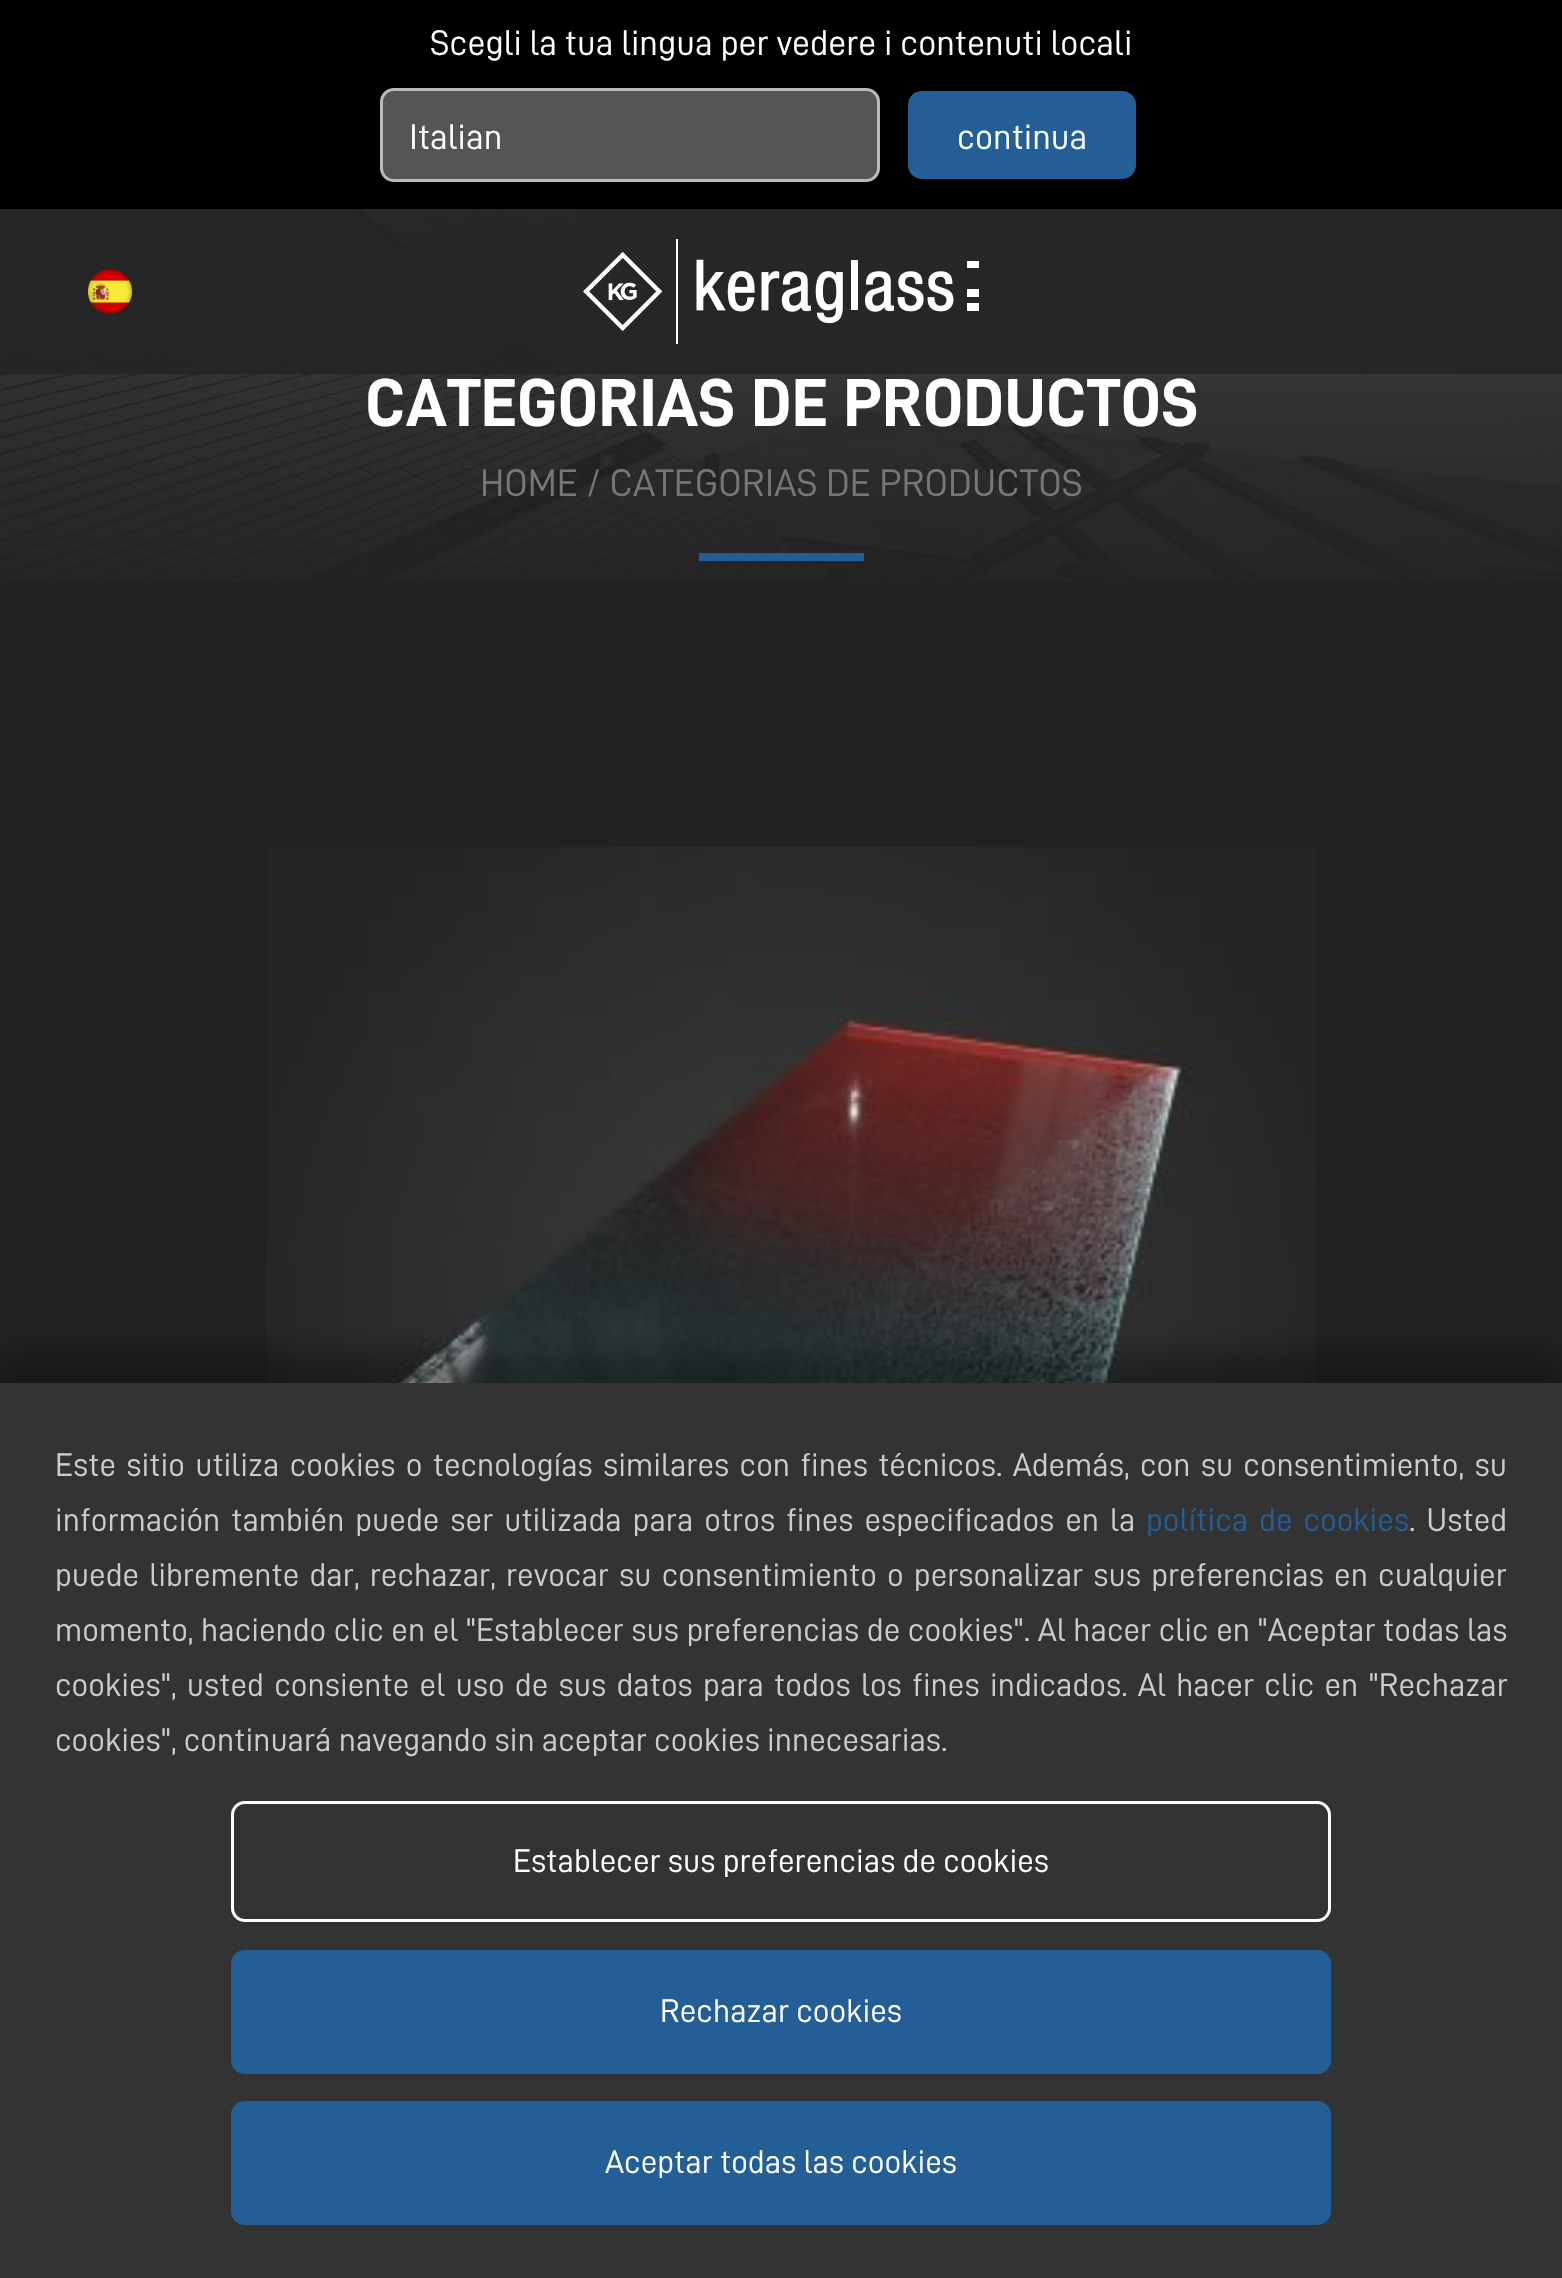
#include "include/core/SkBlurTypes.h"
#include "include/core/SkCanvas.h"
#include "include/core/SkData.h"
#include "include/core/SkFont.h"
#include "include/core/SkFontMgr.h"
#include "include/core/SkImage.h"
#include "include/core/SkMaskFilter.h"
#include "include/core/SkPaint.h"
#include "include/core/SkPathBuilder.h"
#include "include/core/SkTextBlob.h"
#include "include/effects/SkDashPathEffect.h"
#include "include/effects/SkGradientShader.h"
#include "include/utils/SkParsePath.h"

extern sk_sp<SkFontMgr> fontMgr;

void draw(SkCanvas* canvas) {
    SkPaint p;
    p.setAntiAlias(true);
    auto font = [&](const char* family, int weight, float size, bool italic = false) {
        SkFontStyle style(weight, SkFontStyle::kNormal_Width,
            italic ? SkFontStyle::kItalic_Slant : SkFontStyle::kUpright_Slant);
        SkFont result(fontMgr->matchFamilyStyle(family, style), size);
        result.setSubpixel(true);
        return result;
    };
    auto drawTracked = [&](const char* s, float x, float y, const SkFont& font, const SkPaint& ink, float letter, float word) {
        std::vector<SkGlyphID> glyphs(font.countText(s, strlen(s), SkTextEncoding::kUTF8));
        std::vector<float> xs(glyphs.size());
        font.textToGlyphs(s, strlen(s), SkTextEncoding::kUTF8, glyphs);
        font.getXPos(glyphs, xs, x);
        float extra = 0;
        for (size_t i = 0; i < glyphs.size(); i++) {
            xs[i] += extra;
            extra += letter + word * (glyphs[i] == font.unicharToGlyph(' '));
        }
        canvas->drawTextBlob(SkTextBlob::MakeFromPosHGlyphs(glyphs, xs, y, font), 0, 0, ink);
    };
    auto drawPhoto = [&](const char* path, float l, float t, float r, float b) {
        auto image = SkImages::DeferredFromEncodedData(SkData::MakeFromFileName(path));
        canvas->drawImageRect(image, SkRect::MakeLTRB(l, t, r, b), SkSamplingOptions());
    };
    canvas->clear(0xFF222222);
    drawPhoto("media/3.png", 0, 209, 1562, 581);
    p.setColor(0xE6232323);
    canvas->drawRect(SkRect::MakeLTRB(0, 209, 1562, 374), p);
    p.setColor(0xFF000000);
    canvas->drawRect(SkRect::MakeLTRB(0, 0, 1562, 209), p);
    auto font1 = font("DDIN", 400, 35.75f);
    p.setColor(0xFFFFFFFF);
    canvas->drawString("Scegli la tua lingua per vedere i contenuti locali", 430, 55, font1, p);
    p.setColor(0xFF555555);
    canvas->drawRoundRect(SkRect::MakeLTRB(381.5f, 89.5f, 878.5f, 180.5f), 12.5f, 12.5f, p);
    p.setStyle(SkPaint::kStroke_Style);
    p.setStrokeWidth(3);
    p.setColor(0xFFB9B9B9);
    canvas->drawRoundRect(SkRect::MakeLTRB(381.5f, 89.5f, 878.5f, 180.5f), 12.5f, 12.5f, p);
    p.setStyle(SkPaint::kFill_Style);
    p.setColor(0xFFFFFFFF);
    canvas->drawString("Italian", 409, 149, font1, p);
    p.setColor(0xFF235E96);
    canvas->drawRoundRect(SkRect::MakeLTRB(908, 91, 1136, 179), 14, 14, p);
    p.setColor(0xFFFFFFFF);
    canvas->drawString("continua", 957, 149, font1, p);
    drawPhoto("media/1.png", 88, 269, 132, 314);
    drawPhoto("media/2.png", 583, 239, 979, 344);
    auto font2 = font("DDIN", 700, 68);
    canvas->drawString("CATEGORIAS DE PRODUCTOS", 365, 426, font2, p);
    auto font3 = font("DDIN", 400, 38.5f);
    p.setColor(0xFF777777);
    canvas->drawString("HOME / CATEGORIAS DE PRODUCTOS", 480, 496, font3, p);
    p.setColor(0xFF235E96);
    canvas->drawRect(SkRect::MakeLTRB(699, 553, 864, 561), p);
    drawPhoto("media/4.png", 267, 847, 1316, 1383);
    p.setColor(0x4D000000);
    p.setMaskFilter(SkMaskFilter::MakeBlur(kNormal_SkBlurStyle, 14));
    canvas->drawRect(SkRect::MakeLTRB(-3, 1353, 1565, 2255), p);
    p.setMaskFilter(nullptr);
    p.setColor(0xFF333333);
    canvas->drawRect(SkRect::MakeLTRB(0, 1383, 1562, 2278), p);
    auto font4 = font("DDIN", 400, 33);
    p.setColor(0xFFCCCCCC);
    drawTracked("Este sitio utiliza cookies o tecnologías similares con fines técnicos. Además, con su consentimiento, su", 55, 1476, font4, p, 0, 3.1f);
    drawTracked("información también puede ser utilizada para otros fines especificados en la", 55, 1531, font4, p, 0, 3.75f);
    p.setColor(0xFF235E96);
    drawTracked("política de cookies", 1146, 1531, font4, p, 0, 3.75f);
    p.setColor(0xFFCCCCCC);
    drawTracked(". Usted", 1409, 1531, font4, p, 0, 3.75f);
    drawTracked("puede libremente dar, rechazar, revocar su consentimiento o personalizar sus preferencias en cualquier", 55, 1586, font4, p, 0, 3);
    drawTracked("momento, haciendo clic en el \"Establecer sus preferencias de cookies\". Al hacer clic en \"Aceptar todas las", 55, 1641, font4, p, 0, 0.4f);
    drawTracked("cookies\", usted consiente el uso de sus datos para todos los fines indicados. Al hacer clic en \"Rechazar", 55, 1696, font4, p, 0, 3.1f);
    canvas->drawString("cookies\", continuará navegando sin aceptar cookies innecesarias.", 55, 1751, font4, p);
    p.setStyle(SkPaint::kStroke_Style);
    p.setColor(0xFFFFFFFF);
    canvas->drawRoundRect(SkRect::MakeLTRB(232.5f, 1802.5f, 1329.5f, 1920.5f), 12.5f, 12.5f, p);
    p.setStyle(SkPaint::kFill_Style);
    canvas->drawString("Establecer sus preferencias de cookies", 513, 1872, font4, p);
    p.setColor(0xFF235E96);
    canvas->drawRoundRect(SkRect::MakeLTRB(232.5f, 1951.5f, 1329.5f, 2072.5f), 12.5f, 12.5f, p);
    p.setStyle(SkPaint::kStroke_Style);
    canvas->drawRoundRect(SkRect::MakeLTRB(232.5f, 1951.5f, 1329.5f, 2072.5f), 12.5f, 12.5f, p);
    p.setStyle(SkPaint::kFill_Style);
    p.setColor(0xFFFFFFFF);
    canvas->drawString("Rechazar cookies", 660, 2022, font4, p);
    p.setColor(0xFF235E96);
    canvas->drawRoundRect(SkRect::MakeLTRB(232.5f, 2102.5f, 1329.5f, 2223.5f), 12.5f, 12.5f, p);
    p.setStyle(SkPaint::kStroke_Style);
    canvas->drawRoundRect(SkRect::MakeLTRB(232.5f, 2102.5f, 1329.5f, 2223.5f), 12.5f, 12.5f, p);
    p.setStyle(SkPaint::kFill_Style);
    p.setColor(0xFFFFFFFF);
    canvas->drawString("Aceptar todas las cookies", 605, 2173, font4, p);
}
